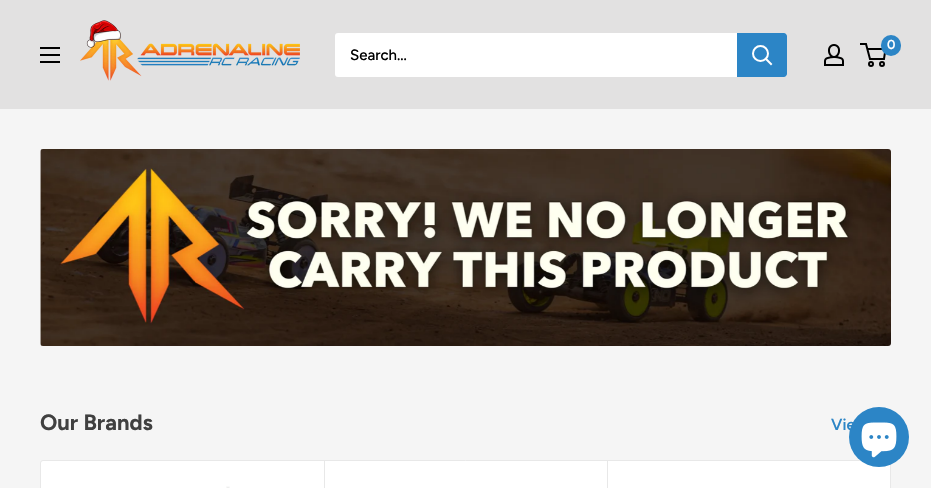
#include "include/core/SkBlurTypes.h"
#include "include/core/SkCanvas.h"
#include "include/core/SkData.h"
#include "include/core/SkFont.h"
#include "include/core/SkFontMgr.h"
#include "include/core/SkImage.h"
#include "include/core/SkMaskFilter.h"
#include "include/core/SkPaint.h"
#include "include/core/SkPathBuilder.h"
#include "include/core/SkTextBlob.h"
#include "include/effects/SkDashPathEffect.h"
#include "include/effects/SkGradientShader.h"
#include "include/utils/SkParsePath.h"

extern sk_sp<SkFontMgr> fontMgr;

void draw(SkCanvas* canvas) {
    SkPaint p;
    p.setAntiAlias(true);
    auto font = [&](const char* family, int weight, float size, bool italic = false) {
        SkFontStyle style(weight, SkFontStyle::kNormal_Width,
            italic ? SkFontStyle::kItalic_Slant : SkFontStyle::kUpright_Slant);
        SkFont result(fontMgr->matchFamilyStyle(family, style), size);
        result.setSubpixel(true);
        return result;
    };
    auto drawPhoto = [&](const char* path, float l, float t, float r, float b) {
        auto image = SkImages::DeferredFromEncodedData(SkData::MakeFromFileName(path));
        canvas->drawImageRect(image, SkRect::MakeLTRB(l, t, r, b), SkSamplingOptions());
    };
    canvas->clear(0xFFF5F5F5);
    p.setColor(0xFFE2E1E1);
    canvas->drawRect(SkRect::MakeLTRB(0, 0, 931, 109), p);
    drawPhoto("media/1.png", 80, 20, 300, 81);
    drawPhoto("media/2.png", 824, 44, 844, 66);
    p.setStyle(SkPaint::kStroke_Style);
    p.setStrokeWidth(2);
    p.setColor(0xFF000000);
    canvas->drawCircle(871, 64, 2, p);
    canvas->drawCircle(882, 64, 2, p);
    canvas->drawPath(SkPathBuilder().moveTo(867.5f, 49).lineTo(885.5f, 49).lineTo(884, 59).lineTo(870, 59).lineTo(866, 44).lineTo(860, 44).detach(), p);
    p.setStyle(SkPaint::kFill_Style);
    p.setColor(0xFF2C85C6);
    canvas->drawRoundRect(SkRect::MakeLTRB(881, 35, 901, 56), 10, 10, p);
    auto font1 = font("Figtree", 600, 13);
    p.setColor(0xFFFFFFFF);
    canvas->drawString("0", 887, 49, font1, p);
    drawPhoto("media/3.png", 40, 47, 60, 63);
    canvas->drawRoundRect(SkRect::MakeLTRB(335, 33, 787, 77), 3, 3, p);
    auto font2 = font("Figtree", 500, 15);
    p.setColor(0xFF000000);
    canvas->drawString("Search...", 350, 60, font2, p);
    p.setColor(0xFF2C85C6);
    canvas->drawPath(SkPathBuilder().moveTo(737, 33).lineTo(784, 33).cubicTo(785.5f, 33, 787, 34.5f, 787, 36).lineTo(787, 74).cubicTo(787, 75.5f, 785.5f, 77, 784, 77).lineTo(737, 77).close().detach(), p);
    p.setStyle(SkPaint::kStroke_Style);
    p.setStrokeCap(SkPaint::kSquare_Cap);
    p.setColor(0xFFFFFFFF);
    canvas->drawPath(SkPathBuilder().moveTo(771, 64).lineTo(766, 59).detach(), p);
    p.setStrokeCap(SkPaint::kButt_Cap);
    canvas->drawCircle(760.5f, 53.5f, 7.5f, p);
    drawPhoto("media/4.png", 40, 149, 891, 346);
    auto font3 = font("Figtree", 700, 22);
    p.setStyle(SkPaint::kFill_Style);
    p.setColor(0xFF404040);
    canvas->drawString("Our Brands", 40, 430, font3, p);
    auto font4 = font("Figtree", 600, 16);
    p.setColor(0xFF2C85C6);
    canvas->drawString("Vie", 831, 430, font4, p);
    p.setColor(0xFFFFFFFF);
    canvas->drawRoundRect(SkRect::MakeLTRB(40.5f, 460.5f, 890.5f, 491.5f), 2.5f, 2.5f, p);
    p.setStyle(SkPaint::kStroke_Style);
    p.setStrokeWidth(1);
    p.setColor(0xFFE8E8E8);
    canvas->drawRoundRect(SkRect::MakeLTRB(40.5f, 460.5f, 890.5f, 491.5f), 2.5f, 2.5f, p);
    p.setStyle(SkPaint::kFill_Style);
    canvas->drawRect(SkRect::MakeLTRB(324, 461, 325, 488), p);
    drawPhoto("media/5.png", 226, 486, 230, 488);
    canvas->drawRect(SkRect::MakeLTRB(607, 461, 608, 488), p);
    canvas->drawRect(SkRect::MakeLTRB(890, 461, 891, 462), p);
    p.setColor(0xFF2C85C6);
    canvas->drawCircle(879, 437, 30, p);
    drawPhoto("media/6.png", 861, 422, 897, 458);
}
